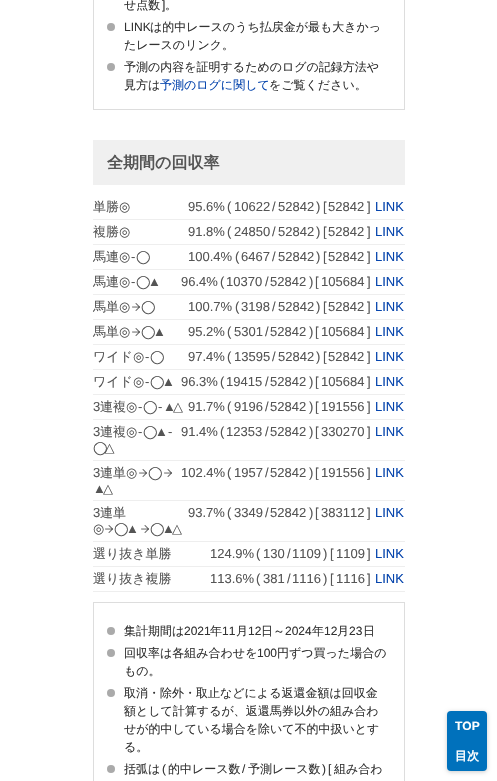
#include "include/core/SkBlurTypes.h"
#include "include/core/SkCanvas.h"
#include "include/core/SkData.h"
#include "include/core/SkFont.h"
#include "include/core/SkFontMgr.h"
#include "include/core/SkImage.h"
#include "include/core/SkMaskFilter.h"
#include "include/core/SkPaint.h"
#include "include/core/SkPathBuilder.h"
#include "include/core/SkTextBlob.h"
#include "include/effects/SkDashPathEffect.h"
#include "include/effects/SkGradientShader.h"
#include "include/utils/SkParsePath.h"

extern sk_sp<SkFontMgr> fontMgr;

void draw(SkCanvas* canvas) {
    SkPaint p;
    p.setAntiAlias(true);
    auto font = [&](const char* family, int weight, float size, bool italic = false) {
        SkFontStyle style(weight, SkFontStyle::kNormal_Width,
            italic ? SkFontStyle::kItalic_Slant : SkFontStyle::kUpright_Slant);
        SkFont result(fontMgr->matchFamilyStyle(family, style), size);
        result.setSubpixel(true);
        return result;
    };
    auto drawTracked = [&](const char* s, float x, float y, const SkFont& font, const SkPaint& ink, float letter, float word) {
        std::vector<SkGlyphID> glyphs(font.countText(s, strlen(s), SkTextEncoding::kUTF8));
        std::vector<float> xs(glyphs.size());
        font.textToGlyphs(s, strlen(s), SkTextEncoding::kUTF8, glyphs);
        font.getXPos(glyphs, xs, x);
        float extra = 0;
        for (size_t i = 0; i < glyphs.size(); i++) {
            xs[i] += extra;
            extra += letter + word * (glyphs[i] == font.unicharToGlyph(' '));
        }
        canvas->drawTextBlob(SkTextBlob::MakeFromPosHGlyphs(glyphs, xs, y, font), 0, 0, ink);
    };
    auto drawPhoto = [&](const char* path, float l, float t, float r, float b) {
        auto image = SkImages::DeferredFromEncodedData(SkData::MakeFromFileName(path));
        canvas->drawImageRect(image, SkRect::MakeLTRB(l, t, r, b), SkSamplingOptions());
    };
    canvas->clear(0xFFFFFFFF);
    p.setStyle(SkPaint::kStroke_Style);
    p.setStrokeWidth(1);
    p.setColor(0xFFDDDDDD);
    canvas->drawRect(SkRect::MakeLTRB(93.5f, -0.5f, 404.5f, 109.5f), p);
    auto font1 = font("WenQuanYi Zen Hei", 500, 12);
    p.setStyle(SkPaint::kFill_Style);
    p.setColor(0xFF333333);
    canvas->drawString("せ点数", 124, 9, font1, p);
    auto font2 = font("Liberation Sans", 400, 12);
    canvas->drawString("]", 162, 9, font2, p);
    canvas->drawString("。", 165, 9, font1, p);
    p.setColor(0xFFAAAAAA);
    canvas->drawCircle(111, 27, 4, p);
    p.setColor(0xFF333333);
    canvas->drawString("LINK", 124, 31, font2, p);
    canvas->drawString("は的中レースのうち払戻金が最も大きかっ", 150, 31, font1, p);
    canvas->drawString("たレースのリンク。", 124, 49, font1, p);
    p.setColor(0xFFAAAAAA);
    canvas->drawCircle(111, 67, 4, p);
    p.setColor(0xFF333333);
    canvas->drawString("予測の内容を証明するためのログの記録方法や", 124, 71, font1, p);
    canvas->drawString("見方は", 124, 89, font1, p);
    p.setColor(0xFF0645AD);
    canvas->drawString("予測のログに関して", 160, 89, font1, p);
    p.setColor(0xFF333333);
    canvas->drawString("をご覧ください。", 269, 89, font1, p);
    p.setColor(0xFFF0F0F0);
    canvas->drawRect(SkRect::MakeLTRB(93, 140, 405, 185), p);
    auto font3 = font("WenQuanYi Zen Hei", 700, 16);
    p.setColor(0xFF555555);
    canvas->drawString("全期間の回収率", 107, 168, font3, p);
    p.setColor(0xFFEEEEEE);
    canvas->drawRect(SkRect::MakeLTRB(93, 219, 405, 220), p);
    auto font4 = font("WenQuanYi Zen Hei", 500, 13);
    p.setColor(0xFF555555);
    canvas->drawString("単勝", 93, 211, font4, p);
    auto font5 = font("DejaVu Sans", 400, 13);
    drawTracked("◎", 119, 211, font5, p, -3, 0);
    auto font6 = font("Liberation Sans", 400, 13);
    {
        const struct { const char* s; float x, y; } items[] = {
            {"95.6%", 188, 211},
            {"(", 227, 211},
            {"10622", 234, 211},
            {"/", 272, 211},
            {"52842", 278, 211},
            {")", 316, 211},
            {"[", 323, 211},
            {"52842", 328, 211},
            {"]", 367, 211},
        };
        for (auto [s, x, y] : items) {
            canvas->drawString(s, x, y, font6, p);
        }
    }
    p.setColor(0xFF0645AD);
    canvas->drawString("LINK", 375, 211, font6, p);
    p.setColor(0xFFEEEEEE);
    canvas->drawRect(SkRect::MakeLTRB(93, 244, 405, 245), p);
    p.setColor(0xFF555555);
    canvas->drawString("複勝", 93, 236, font4, p);
    drawTracked("◎", 119, 236, font5, p, -3, 0);
    {
        const struct { const char* s; float x, y; } items[] = {
            {"91.8%", 188, 236},
            {"(", 227, 236},
            {"24850", 234, 236},
            {"/", 272, 236},
            {"52842", 278, 236},
            {")", 316, 236},
            {"[", 323, 236},
            {"52842", 328, 236},
            {"]", 367, 236},
        };
        for (auto [s, x, y] : items) {
            canvas->drawString(s, x, y, font6, p);
        }
    }
    p.setColor(0xFF0645AD);
    canvas->drawString("LINK", 375, 236, font6, p);
    p.setColor(0xFFEEEEEE);
    canvas->drawRect(SkRect::MakeLTRB(93, 269, 405, 270), p);
    p.setColor(0xFF555555);
    canvas->drawString("馬連", 93, 261, font4, p);
    drawTracked("◎", 119, 261, font5, p, -3, 0);
    drawTracked("-", 131, 261, font6, p, -3, 0);
    drawTracked("◯", 136, 261, font5, p, -3, 0);
    {
        const struct { const char* s; float x, y; } items[] = {
            {"100.4%", 188, 261},
            {"(", 235, 261},
            {"6467", 241, 261},
            {"/", 272, 261},
            {"52842", 278, 261},
            {")", 316, 261},
            {"[", 323, 261},
            {"52842", 328, 261},
            {"]", 367, 261},
        };
        for (auto [s, x, y] : items) {
            canvas->drawString(s, x, y, font6, p);
        }
    }
    p.setColor(0xFF0645AD);
    canvas->drawString("LINK", 375, 261, font6, p);
    p.setColor(0xFFEEEEEE);
    canvas->drawRect(SkRect::MakeLTRB(93, 294, 405, 295), p);
    p.setColor(0xFF555555);
    canvas->drawString("馬連", 93, 286, font4, p);
    drawTracked("◎", 119, 286, font5, p, -3, 0);
    drawTracked("-", 131, 286, font6, p, -3, 0);
    drawTracked("◯", 136, 286, font5, p, -3, 0);
    drawTracked("▲", 148, 286, font6, p, -3, 0);
    {
        const struct { const char* s; float x, y; } items[] = {
            {"96.4%", 181, 286},
            {"(", 220, 286},
            {"10370", 226, 286},
            {"/", 265, 286},
            {"52842", 270, 286},
            {")", 309, 286},
            {"[", 315, 286},
            {"105684", 321, 286},
            {"]", 367, 286},
        };
        for (auto [s, x, y] : items) {
            canvas->drawString(s, x, y, font6, p);
        }
    }
    p.setColor(0xFF0645AD);
    canvas->drawString("LINK", 375, 286, font6, p);
    p.setColor(0xFFEEEEEE);
    canvas->drawRect(SkRect::MakeLTRB(93, 319, 405, 320), p);
    p.setColor(0xFF555555);
    canvas->drawString("馬単", 93, 311, font4, p);
    drawTracked("◎", 119, 311, font5, p, -3, 0);
    drawPhoto("media/1.png", 132, 303, 140, 311);
    drawTracked("◯", 141, 311, font5, p, -3, 0);
    {
        const struct { const char* s; float x, y; } items[] = {
            {"100.7%", 188, 311},
            {"(", 235, 311},
            {"3198", 241, 311},
            {"/", 272, 311},
            {"52842", 278, 311},
            {")", 316, 311},
            {"[", 323, 311},
            {"52842", 328, 311},
            {"]", 367, 311},
        };
        for (auto [s, x, y] : items) {
            canvas->drawString(s, x, y, font6, p);
        }
    }
    p.setColor(0xFF0645AD);
    canvas->drawString("LINK", 375, 311, font6, p);
    p.setColor(0xFFEEEEEE);
    canvas->drawRect(SkRect::MakeLTRB(93, 344, 405, 345), p);
    p.setColor(0xFF555555);
    canvas->drawString("馬単", 93, 336, font4, p);
    drawTracked("◎", 119, 336, font5, p, -3, 0);
    drawPhoto("media/1.png", 132, 328, 140, 336);
    drawTracked("◯", 141, 336, font5, p, -3, 0);
    drawTracked("▲", 153, 336, font6, p, -3, 0);
    {
        const struct { const char* s; float x, y; } items[] = {
            {"95.2%", 188, 336},
            {"(", 227, 336},
            {"5301", 234, 336},
            {"/", 265, 336},
            {"52842", 270, 336},
            {")", 309, 336},
            {"[", 315, 336},
            {"105684", 321, 336},
            {"]", 367, 336},
        };
        for (auto [s, x, y] : items) {
            canvas->drawString(s, x, y, font6, p);
        }
    }
    p.setColor(0xFF0645AD);
    canvas->drawString("LINK", 375, 336, font6, p);
    p.setColor(0xFFEEEEEE);
    canvas->drawRect(SkRect::MakeLTRB(93, 369, 405, 370), p);
    p.setColor(0xFF555555);
    canvas->drawString("ワイド", 93, 361, font4, p);
    drawTracked("◎", 133, 361, font5, p, -3, 0);
    drawTracked("-", 145, 361, font6, p, -3, 0);
    drawTracked("◯", 150, 361, font5, p, -3, 0);
    {
        const struct { const char* s; float x, y; } items[] = {
            {"97.4%", 188, 361},
            {"(", 227, 361},
            {"13595", 234, 361},
            {"/", 272, 361},
            {"52842", 278, 361},
            {")", 316, 361},
            {"[", 323, 361},
            {"52842", 328, 361},
            {"]", 367, 361},
        };
        for (auto [s, x, y] : items) {
            canvas->drawString(s, x, y, font6, p);
        }
    }
    p.setColor(0xFF0645AD);
    canvas->drawString("LINK", 375, 361, font6, p);
    p.setColor(0xFFEEEEEE);
    canvas->drawRect(SkRect::MakeLTRB(93, 394, 405, 395), p);
    p.setColor(0xFF555555);
    canvas->drawString("ワイド", 93, 386, font4, p);
    drawTracked("◎", 133, 386, font5, p, -3, 0);
    drawTracked("-", 145, 386, font6, p, -3, 0);
    drawTracked("◯", 150, 386, font5, p, -3, 0);
    drawTracked("▲", 162, 386, font6, p, -3, 0);
    {
        const struct { const char* s; float x, y; } items[] = {
            {"96.3%", 181, 386},
            {"(", 220, 386},
            {"19415", 226, 386},
            {"/", 265, 386},
            {"52842", 270, 386},
            {")", 309, 386},
            {"[", 315, 386},
            {"105684", 321, 386},
            {"]", 367, 386},
        };
        for (auto [s, x, y] : items) {
            canvas->drawString(s, x, y, font6, p);
        }
    }
    p.setColor(0xFF0645AD);
    canvas->drawString("LINK", 375, 386, font6, p);
    p.setColor(0xFFEEEEEE);
    canvas->drawRect(SkRect::MakeLTRB(93, 419, 405, 420), p);
    p.setColor(0xFF555555);
    canvas->drawString("3", 93, 411, font6, p);
    canvas->drawString("連複", 100, 411, font4, p);
    drawTracked("◎", 126, 411, font5, p, -3, 0);
    drawTracked("-", 138, 411, font6, p, -3, 0);
    drawTracked("◯", 143, 411, font5, p, -3, 0);
    drawTracked("-", 158, 411, font6, p, -3, 0);
    drawTracked("▲", 163, 411, font6, p, -3, 0);
    drawTracked("△", 173, 411, font5, p, -3, 0);
    {
        const struct { const char* s; float x, y; } items[] = {
            {"91.7%", 188, 411},
            {"(", 227, 411},
            {"9196", 234, 411},
            {"/", 265, 411},
            {"52842", 270, 411},
            {")", 309, 411},
            {"[", 315, 411},
            {"191556", 321, 411},
            {"]", 367, 411},
        };
        for (auto [s, x, y] : items) {
            canvas->drawString(s, x, y, font6, p);
        }
    }
    p.setColor(0xFF0645AD);
    canvas->drawString("LINK", 375, 411, font6, p);
    p.setColor(0xFFEEEEEE);
    canvas->drawRect(SkRect::MakeLTRB(93, 460, 405, 461), p);
    p.setColor(0xFF555555);
    canvas->drawString("3", 93, 436, font6, p);
    canvas->drawString("連複", 100, 436, font4, p);
    drawTracked("◎", 126, 436, font5, p, -3, 0);
    drawTracked("-", 138, 436, font6, p, -3, 0);
    drawTracked("◯", 143, 436, font5, p, -3, 0);
    drawTracked("▲", 155, 436, font6, p, -3, 0);
    drawTracked("-", 168, 436, font6, p, -3, 0);
    drawTracked("◯△", 93, 452, font5, p, -3, 0);
    {
        const struct { const char* s; float x, y; } items[] = {
            {"91.4%", 181, 436},
            {"(", 220, 436},
            {"12353", 226, 436},
            {"/", 265, 436},
            {"52842", 270, 436},
            {")", 309, 436},
            {"[", 315, 436},
            {"330270", 321, 436},
            {"]", 367, 436},
        };
        for (auto [s, x, y] : items) {
            canvas->drawString(s, x, y, font6, p);
        }
    }
    p.setColor(0xFF0645AD);
    canvas->drawString("LINK", 375, 436, font6, p);
    p.setColor(0xFFEEEEEE);
    canvas->drawRect(SkRect::MakeLTRB(93, 500, 405, 501), p);
    p.setColor(0xFF555555);
    canvas->drawString("3", 93, 477, font6, p);
    canvas->drawString("連単", 100, 477, font4, p);
    drawTracked("◎", 126, 477, font5, p, -3, 0);
    drawPhoto("media/1.png", 139, 469, 147, 477);
    drawTracked("◯", 148, 477, font5, p, -3, 0);
    drawPhoto("media/1.png", 164, 469, 172, 477);
    drawTracked("▲", 93, 493, font6, p, -3, 0);
    drawTracked("△", 103, 493, font5, p, -3, 0);
    {
        const struct { const char* s; float x, y; } items[] = {
            {"102.4%", 181, 477},
            {"(", 227, 477},
            {"1957", 234, 477},
            {"/", 265, 477},
            {"52842", 270, 477},
            {")", 309, 477},
            {"[", 315, 477},
            {"191556", 321, 477},
            {"]", 367, 477},
        };
        for (auto [s, x, y] : items) {
            canvas->drawString(s, x, y, font6, p);
        }
    }
    p.setColor(0xFF0645AD);
    canvas->drawString("LINK", 375, 477, font6, p);
    p.setColor(0xFFEEEEEE);
    canvas->drawRect(SkRect::MakeLTRB(93, 541, 405, 542), p);
    p.setColor(0xFF555555);
    canvas->drawString("3", 93, 517, font6, p);
    canvas->drawString("連単", 100, 517, font4, p);
    drawTracked("◎", 93, 533, font5, p, -3, 0);
    drawPhoto("media/1.png", 105, 525, 113, 533);
    drawTracked("◯", 114, 533, font5, p, -3, 0);
    drawTracked("▲", 126, 533, font6, p, -3, 0);
    drawPhoto("media/1.png", 141, 525, 149, 533);
    drawTracked("◯", 150, 533, font5, p, -3, 0);
    drawTracked("▲", 162, 533, font6, p, -3, 0);
    drawTracked("△", 172, 533, font5, p, -3, 0);
    {
        const struct { const char* s; float x, y; } items[] = {
            {"93.7%", 188, 517},
            {"(", 227, 517},
            {"3349", 234, 517},
            {"/", 265, 517},
            {"52842", 270, 517},
            {")", 309, 517},
            {"[", 315, 517},
            {"383112", 321, 517},
            {"]", 367, 517},
        };
        for (auto [s, x, y] : items) {
            canvas->drawString(s, x, y, font6, p);
        }
    }
    p.setColor(0xFF0645AD);
    canvas->drawString("LINK", 375, 517, font6, p);
    p.setColor(0xFFEEEEEE);
    canvas->drawRect(SkRect::MakeLTRB(93, 566, 405, 567), p);
    p.setColor(0xFF555555);
    canvas->drawString("選り抜き単勝", 93, 558, font4, p);
    {
        const struct { const char* s; float x, y; } items[] = {
            {"124.9%", 210, 558},
            {"(", 256, 558},
            {"130", 263, 558},
            {"/", 287, 558},
            {"1109", 292, 558},
            {")", 323, 558},
            {"[", 330, 558},
            {"1109", 336, 558},
            {"]", 367, 558},
        };
        for (auto [s, x, y] : items) {
            canvas->drawString(s, x, y, font6, p);
        }
    }
    p.setColor(0xFF0645AD);
    canvas->drawString("LINK", 375, 558, font6, p);
    p.setColor(0xFFEEEEEE);
    canvas->drawRect(SkRect::MakeLTRB(93, 591, 405, 592), p);
    p.setColor(0xFF555555);
    canvas->drawString("選り抜き複勝", 93, 583, font4, p);
    {
        const struct { const char* s; float x, y; } items[] = {
            {"113.6%", 210, 583},
            {"(", 256, 583},
            {"381", 263, 583},
            {"/", 287, 583},
            {"1116", 292, 583},
            {")", 323, 583},
            {"[", 330, 583},
            {"1116", 336, 583},
            {"]", 367, 583},
        };
        for (auto [s, x, y] : items) {
            canvas->drawString(s, x, y, font6, p);
        }
    }
    p.setColor(0xFF0645AD);
    canvas->drawString("LINK", 375, 583, font6, p);
    p.setStyle(SkPaint::kStroke_Style);
    p.setColor(0xFFDDDDDD);
    canvas->drawRect(SkRect::MakeLTRB(93.5f, 602.5f, 404.5f, 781.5f), p);
    p.setStyle(SkPaint::kFill_Style);
    p.setColor(0xFFAAAAAA);
    canvas->drawCircle(111, 631, 4, p);
    p.setColor(0xFF333333);
    canvas->drawString("集計期間は", 124, 635, font1, p);
    canvas->drawString("2021", 184, 635, font2, p);
    canvas->drawString("年", 210, 635, font1, p);
    canvas->drawString("11", 222, 635, font2, p);
    canvas->drawString("月", 236, 635, font1, p);
    canvas->drawString("12", 248, 635, font2, p);
    canvas->drawString("日～", 261, 635, font1, p);
    canvas->drawString("2024", 285, 635, font2, p);
    canvas->drawString("年", 312, 635, font1, p);
    canvas->drawString("12", 324, 635, font2, p);
    canvas->drawString("月", 337, 635, font1, p);
    canvas->drawString("23", 349, 635, font2, p);
    canvas->drawString("日", 363, 635, font1, p);
    p.setColor(0xFFAAAAAA);
    canvas->drawCircle(111, 653, 4, p);
    p.setColor(0xFF333333);
    canvas->drawString("回収率は各組み合わせを", 124, 657, font1, p);
    canvas->drawString("100", 257, 657, font2, p);
    canvas->drawString("円ずつ買った場合の", 277, 657, font1, p);
    canvas->drawString("もの。", 124, 675, font1, p);
    p.setColor(0xFFAAAAAA);
    canvas->drawCircle(111, 693, 4, p);
    p.setColor(0xFF333333);
    {
        const struct { const char* s; float x, y; } items[] = {
            {"取消・除外・取止などによる返還金額は回収金", 124, 697},
            {"額として計算するが、返還馬券以外の組み合わ", 124, 715},
            {"せが的中している場合を除いて不的中扱いとす", 124, 733},
            {"る。", 124, 751},
        };
        for (auto [s, x, y] : items) {
            canvas->drawString(s, x, y, font1, p);
        }
    }
    p.setColor(0xFFAAAAAA);
    canvas->drawCircle(111, 769, 4, p);
    p.setColor(0xFF333333);
    canvas->drawString("括弧は", 124, 773, font1, p);
    canvas->drawString("(", 162, 773, font2, p);
    canvas->drawString("的中レース数", 168, 773, font1, p);
    canvas->drawString("/", 242, 773, font2, p);
    canvas->drawString("予測レース数", 248, 773, font1, p);
    canvas->drawString(")", 322, 773, font2, p);
    canvas->drawString("[", 328, 773, font2, p);
    canvas->drawString("組み合わ", 334, 773, font1, p);
    p.setColor(0x33000000);
    p.setMaskFilter(SkMaskFilter::MakeBlur(kNormal_SkBlurStyle, 2));
    canvas->drawRoundRect(SkRect::MakeLTRB(447, 712, 487, 772), 4, 4, p);
    p.setMaskFilter(nullptr);
    p.setColor(0xFF0071BC);
    canvas->drawRoundRect(SkRect::MakeLTRB(447, 711, 487, 771), 4, 4, p);
    auto font7 = font("Liberation Sans", 700, 12);
    p.setColor(0xFFFFFFFF);
    canvas->drawString("TOP", 455, 730, font7, p);
    auto font8 = font("WenQuanYi Zen Hei", 700, 12);
    canvas->drawString("目次", 455, 760, font8, p);
}
